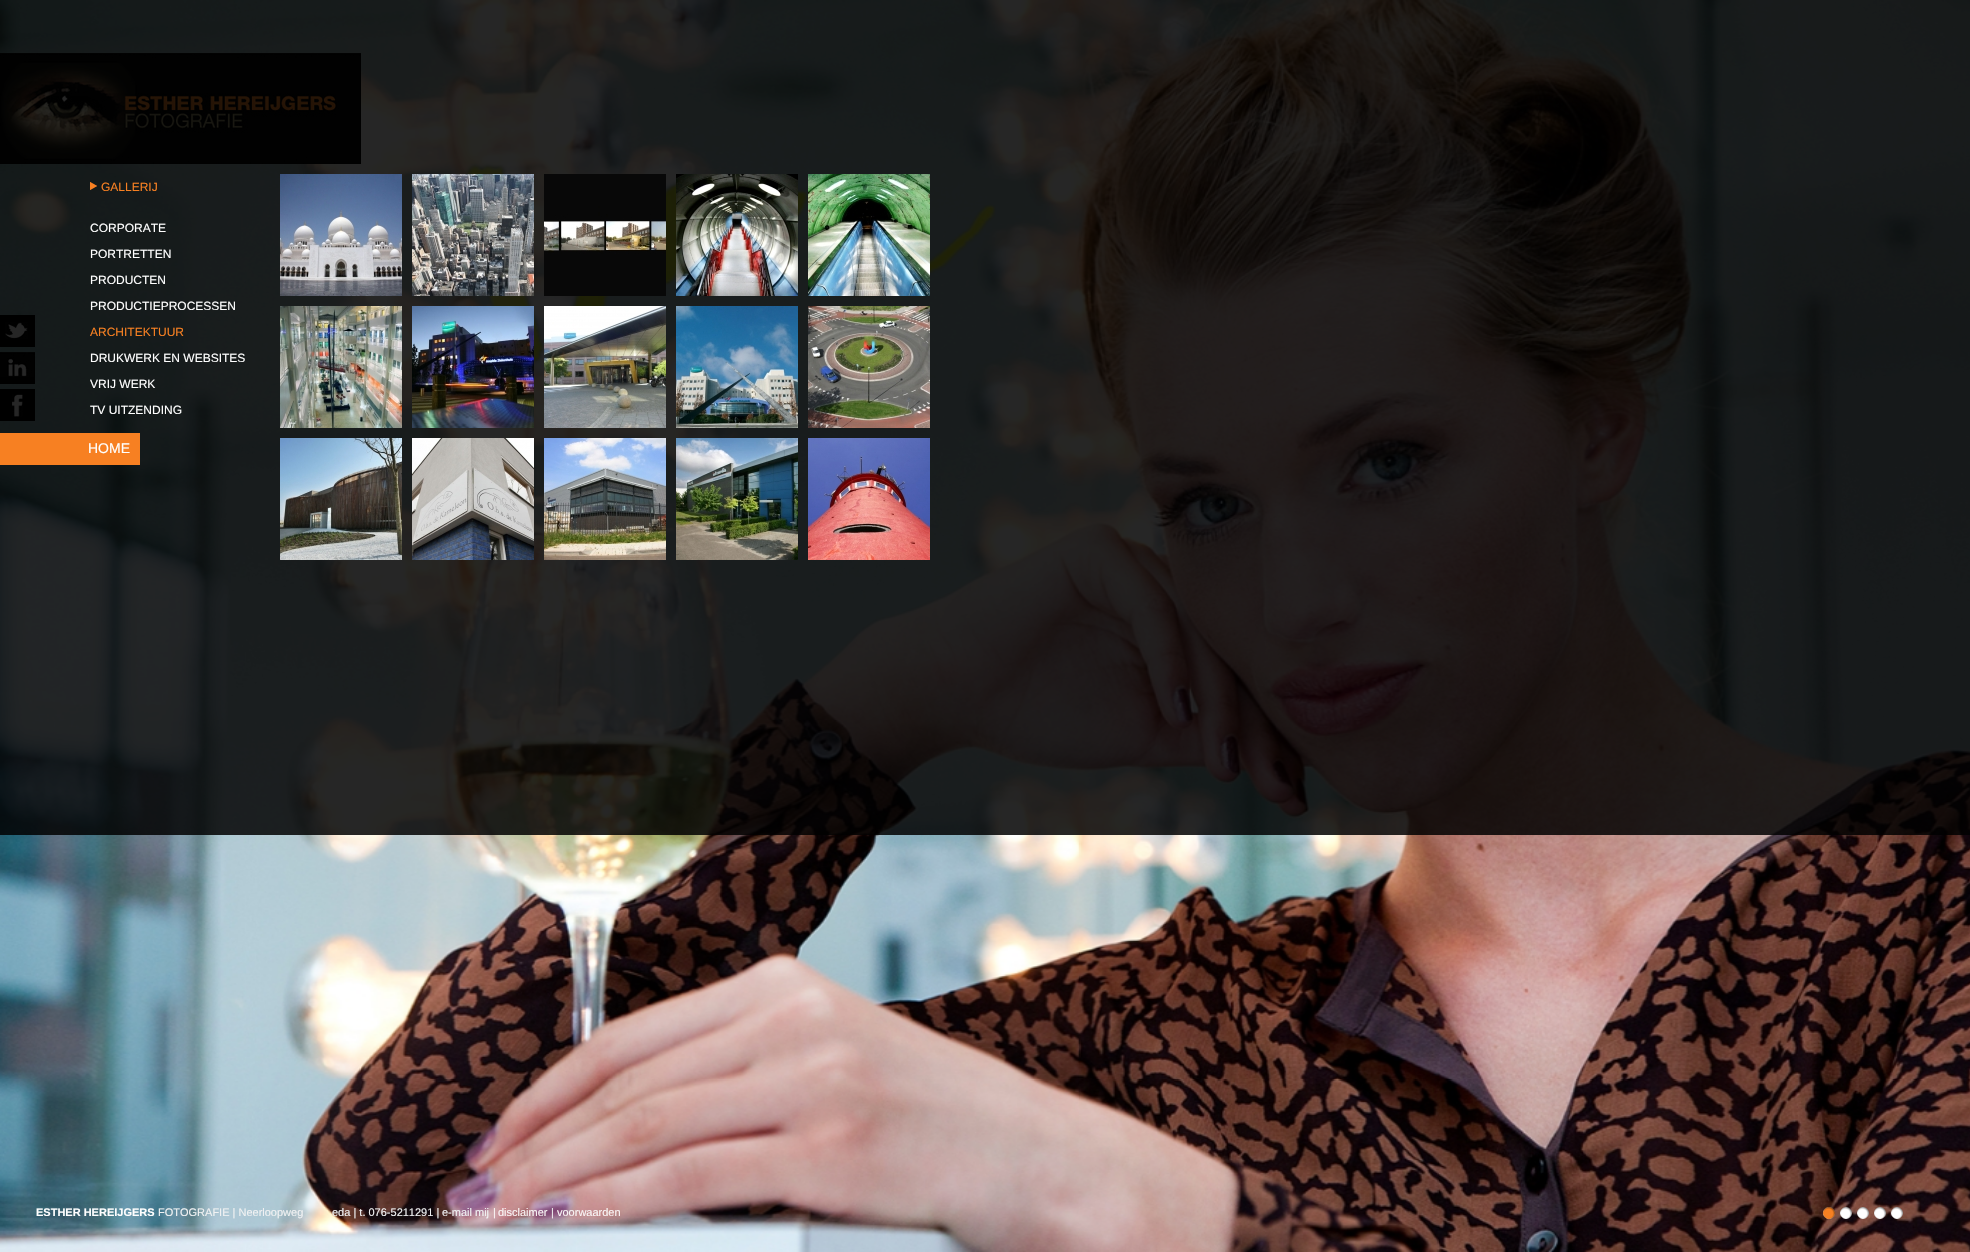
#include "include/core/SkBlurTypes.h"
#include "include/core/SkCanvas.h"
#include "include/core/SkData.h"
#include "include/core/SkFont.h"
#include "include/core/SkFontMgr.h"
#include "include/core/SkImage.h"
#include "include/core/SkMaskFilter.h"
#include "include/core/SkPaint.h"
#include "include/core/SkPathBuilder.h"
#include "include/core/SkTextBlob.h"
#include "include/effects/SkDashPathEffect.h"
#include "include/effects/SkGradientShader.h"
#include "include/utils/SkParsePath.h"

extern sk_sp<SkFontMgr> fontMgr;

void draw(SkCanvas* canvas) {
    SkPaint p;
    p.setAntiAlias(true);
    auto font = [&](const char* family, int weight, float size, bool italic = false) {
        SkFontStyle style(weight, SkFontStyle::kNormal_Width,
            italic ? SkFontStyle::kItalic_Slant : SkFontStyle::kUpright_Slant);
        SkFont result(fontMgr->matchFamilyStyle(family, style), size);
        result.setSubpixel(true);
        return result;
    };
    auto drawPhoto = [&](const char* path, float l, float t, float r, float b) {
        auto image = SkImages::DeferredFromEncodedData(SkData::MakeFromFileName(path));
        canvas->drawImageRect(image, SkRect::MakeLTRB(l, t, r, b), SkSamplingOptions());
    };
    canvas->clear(0xFFFFFFFF);
    drawPhoto("media/1.png", 0, 0, 1970, 1252);
    drawPhoto("media/2.png", 0, 53, 361, 164);
    p.setColor(0xFF000000);
    canvas->drawRect(SkRect::MakeLTRB(0, 315, 35, 347), p);
    drawPhoto("media/3.png", 5, 322, 28, 339);
    canvas->drawRect(SkRect::MakeLTRB(0, 377, 35, 384), p);
    drawPhoto("media/4.png", 0, 352, 35, 377);
    canvas->drawRect(SkRect::MakeLTRB(0, 389, 35, 421), p);
    drawPhoto("media/5.png", 12, 394, 23, 417);
    p.setColor(0xD9000000);
    canvas->drawRect(SkRect::MakeLTRB(0, 0, 1970, 835), p);
    drawPhoto("media/6.png", 280, 174, 402, 296);
    drawPhoto("media/7.png", 412, 174, 534, 296);
    drawPhoto("media/8.png", 544, 174, 666, 296);
    drawPhoto("media/9.png", 676, 174, 798, 296);
    drawPhoto("media/10.png", 808, 174, 930, 296);
    drawPhoto("media/11.png", 280, 306, 402, 428);
    drawPhoto("media/12.png", 412, 306, 534, 428);
    drawPhoto("media/13.png", 544, 306, 666, 428);
    drawPhoto("media/14.png", 676, 306, 798, 428);
    drawPhoto("media/15.png", 808, 306, 930, 428);
    drawPhoto("media/16.png", 280, 438, 402, 560);
    drawPhoto("media/17.png", 412, 438, 534, 560);
    drawPhoto("media/18.png", 544, 438, 666, 560);
    drawPhoto("media/19.png", 676, 438, 798, 560);
    drawPhoto("media/20.png", 808, 438, 930, 560);
    drawPhoto("media/21.png", 90, 182, 97, 190);
    auto font1 = font("Liberation Sans", 400, 12);
    p.setColor(0xFFF78022);
    canvas->drawString("GALLERIJ", 101, 191, font1, p);
    p.setColor(0xFFFFFFFF);
    {
        const struct { const char* s; float x, y; } items[] = {
            {"CORPORATE", 90, 232},
            {"PORTRETTEN", 90, 258},
            {"PRODUCTEN", 90, 284},
            {"PRODUCTIEPROCESSEN", 90, 310},
        };
        for (auto [s, x, y] : items) {
            canvas->drawString(s, x, y, font1, p);
        }
    }
    p.setColor(0xFFF78022);
    canvas->drawString("ARCHITEKTUUR", 90, 336, font1, p);
    p.setColor(0xFFFFFFFF);
    {
        const struct { const char* s; float x, y; } items[] = {
            {"DRUKWERK EN WEBSITES", 90, 362},
            {"VRIJ WERK", 90, 388},
            {"TV UITZENDING", 90, 414},
        };
        for (auto [s, x, y] : items) {
            canvas->drawString(s, x, y, font1, p);
        }
    }
    p.setColor(0xFFF78022);
    canvas->drawRect(SkRect::MakeLTRB(0, 433, 140, 465), p);
    auto font2 = font("Liberation Sans", 400, 14);
    p.setColor(0xFFFFFFFF);
    canvas->drawString("HOME", 88, 453, font2, p);
    auto font3 = font("Liberation Sans", 700, 11);
    canvas->drawString("ESTHER HEREIJGERS", 36, 1216, font3, p);
    auto font4 = font("Liberation Sans", 400, 11);
    p.setColor(0xFFF1F2F3);
    {
        const struct { const char* s; float x, y; } items[] = {
            {"FOTOGRAFIE | Neerloopweg", 158, 1216},
            {"eda | t. 076-5211291 |", 332, 1216},
            {"e-mail mij", 442, 1216},
        };
        for (auto [s, x, y] : items) {
            canvas->drawString(s, x, y, font4, p);
        }
    }
    p.setColor(0xFFFAF6F6);
    canvas->drawString("|", 493, 1216, font4, p);
    canvas->drawString("disclaimer", 498, 1216, font4, p);
    p.setColor(0xFFF1F2F3);
    canvas->drawString("|", 551, 1216, font4, p);
    p.setColor(0xFFFAF6F6);
    canvas->drawString("voorwaarden", 557, 1216, font4, p);
    drawPhoto("media/22.png", 1823, 1207, 1835, 1219);
    drawPhoto("media/23.png", 1840, 1207, 1852, 1219);
    drawPhoto("media/24.png", 1857, 1207, 1869, 1219);
    drawPhoto("media/25.png", 1874, 1207, 1886, 1219);
    drawPhoto("media/26.png", 1891, 1207, 1903, 1219);
}
